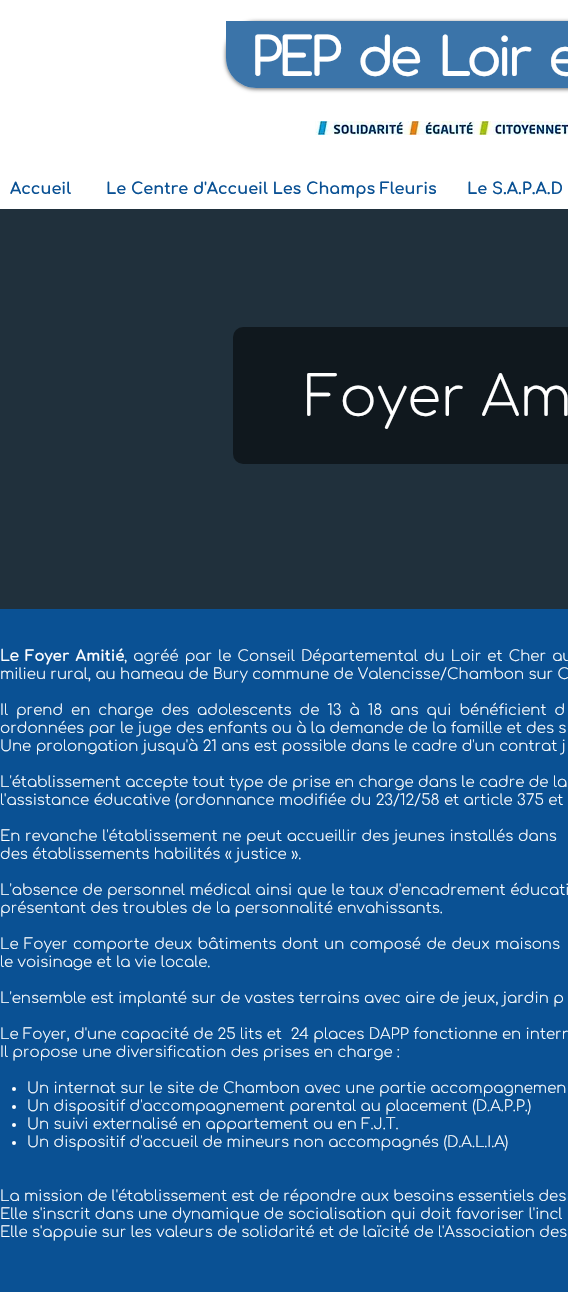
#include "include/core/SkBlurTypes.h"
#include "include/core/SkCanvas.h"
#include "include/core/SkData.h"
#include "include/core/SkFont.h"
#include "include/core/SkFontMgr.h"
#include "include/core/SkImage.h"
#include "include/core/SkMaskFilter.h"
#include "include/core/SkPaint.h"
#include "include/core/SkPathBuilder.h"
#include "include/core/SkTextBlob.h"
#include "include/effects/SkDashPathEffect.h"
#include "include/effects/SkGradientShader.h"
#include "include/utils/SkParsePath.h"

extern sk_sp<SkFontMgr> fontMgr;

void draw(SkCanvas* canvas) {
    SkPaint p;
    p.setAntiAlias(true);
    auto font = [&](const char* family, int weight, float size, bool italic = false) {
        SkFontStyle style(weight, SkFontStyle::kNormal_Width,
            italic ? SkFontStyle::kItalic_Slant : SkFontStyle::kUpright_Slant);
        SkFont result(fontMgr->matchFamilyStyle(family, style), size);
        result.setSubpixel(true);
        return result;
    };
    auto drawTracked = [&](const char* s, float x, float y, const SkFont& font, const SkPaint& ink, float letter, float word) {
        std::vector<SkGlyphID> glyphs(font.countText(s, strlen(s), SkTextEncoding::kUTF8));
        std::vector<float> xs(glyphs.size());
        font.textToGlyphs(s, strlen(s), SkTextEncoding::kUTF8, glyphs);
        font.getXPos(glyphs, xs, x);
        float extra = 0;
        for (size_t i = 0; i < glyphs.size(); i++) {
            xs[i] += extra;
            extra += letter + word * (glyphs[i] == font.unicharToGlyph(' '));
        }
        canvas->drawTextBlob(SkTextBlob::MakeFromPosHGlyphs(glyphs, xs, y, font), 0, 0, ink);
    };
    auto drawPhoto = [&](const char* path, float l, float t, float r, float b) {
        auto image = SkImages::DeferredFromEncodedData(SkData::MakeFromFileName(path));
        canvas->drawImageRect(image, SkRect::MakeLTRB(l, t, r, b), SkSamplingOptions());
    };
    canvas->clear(0xFFFFFFFF);
    canvas->save();
    canvas->clipPath(SkPathBuilder(SkPathFillType::kEvenOdd).moveTo(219, 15).lineTo(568, 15).lineTo(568, 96).lineTo(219, 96).close().moveTo(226, 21).lineTo(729, 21).cubicTo(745.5f, 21, 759, 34.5f, 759, 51).lineTo(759, 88).lineTo(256, 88).cubicTo(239.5f, 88, 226, 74.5f, 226, 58).close().detach(), true);
    p.setColor(0x99000000);
    p.setMaskFilter(SkMaskFilter::MakeBlur(kNormal_SkBlurStyle, 2));
    canvas->drawRoundRect(SkRect::MakeLTRB(226, 22, 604, 89), 30, 30, p);
    p.setMaskFilter(nullptr);
    canvas->restore();
    p.setColor(0xCC0A5194);
    canvas->drawPath(SkPathBuilder().moveTo(226, 21).lineTo(568, 21).cubicTo(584.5f, 21, 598, 34.5f, 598, 51).lineTo(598, 88).lineTo(256, 88).cubicTo(239.5f, 88, 226, 74.5f, 226, 58).close().detach(), p);
    auto font1 = font("Comfortaa", 600, 53);
    p.setColor(0xFFFFFFFF);
    drawTracked("PEP  de  Loir  e", 250, 76, font1, p, -5.25f, 0);
    drawPhoto("media/1.png", 315, 121, 568, 135);
    auto font2 = font("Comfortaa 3", 700, 16);
    p.setColor(0xFF0A5194);
    {
        const struct { const char* s; float x, y; } items[] = {
            {"Accueil", 10, 194},
            {"Le Centre d'Accueil Les Champs Fleuris", 106, 194},
            {"Le S.A.P.A.D", 467, 194},
        };
        for (auto [s, x, y] : items) {
            canvas->drawString(s, x, y, font2, p);
        }
    }
    p.setColor(0xFF20303C);
    canvas->drawRect(SkRect::MakeLTRB(0, 209, 568, 609), p);
    p.setColor(0xFF10181E);
    canvas->drawRoundRect(SkRect::MakeLTRB(233, 327, 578, 464), 10, 10, p);
    auto font3 = font("Comfortaa", 300, 55);
    p.setColor(0xFFFFFFFF);
    canvas->drawString("Foyer Am", 305, 416, font3, p);
    p.setColor(0xFF0A5194);
    canvas->drawRect(SkRect::MakeLTRB(0, 609, 568, 1292), p);
    auto font4 = font("Comfortaa", 700, 15);
    p.setColor(0xFFFFFFFF);
    canvas->drawString("Le", 0, 661, font4, p);
    auto font5 = font("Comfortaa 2", 700, 15);
    drawTracked("Foyer Amitié", 25, 661, font5, p, 0, 2);
    auto font6 = font("Comfortaa", 300, 15);
    drawTracked(", agréé par le Conseil Départemental du Loir et Cher au", 124, 661, font6, p, 0, 1.75f);
    canvas->drawString("milieu rural, au hameau de Bury commune de Valencisse/Chambon sur C", 0, 679, font6, p);
    drawTracked("Il prend en charge des adolescents de 13 à 18 ans qui bénéficient d", 0, 715, font6, p, 0, 3.6f);
    {
        const struct { const char* s; float x, y; } items[] = {
            {"ordonnées par le juge des enfants ou à la demande de la famille et des s", 0, 733},
            {"Une prolongation jusqu'à 21 ans est possible dans le cadre d'un contrat j", 0, 751},
            {"L'établissement accepte tout type de prise en charge dans le cadre de la", 0, 787},
            {"l'assistance éducative (ordonnance modifiée du 23/12/58 et article 375 et", 0, 805},
        };
        for (auto [s, x, y] : items) {
            canvas->drawString(s, x, y, font6, p);
        }
    }
    drawTracked("En revanche l'établissement ne peut accueillir des jeunes installés dans", 0, 841, font6, p, 0, 0.25f);
    canvas->drawString("des établissements habilités « justice ».", 0, 859, font6, p);
    drawTracked("L'absence de personnel médical ainsi que le taux d'encadrement éducati", 0, 895, font6, p, 0, 0.25f);
    canvas->drawString("présentant des troubles de la personnalité envahissants.", 0, 913, font6, p);
    drawTracked("Le Foyer comporte deux bâtiments dont un composé de deux maisons", 0, 949, font6, p, 0, 1);
    {
        const struct { const char* s; float x, y; } items[] = {
            {"le voisinage et la vie locale.", 0, 967},
            {"L'ensemble est implanté sur de vastes terrains avec aire de jeux, jardin p", 0, 1003},
            {"Le Foyer, d'une capacité de 25 lits et  24 places DAPP fonctionne en intern", 0, 1039},
            {"Il propose une diversification des prises en charge :", 0, 1057},
        };
        for (auto [s, x, y] : items) {
            canvas->drawString(s, x, y, font6, p);
        }
    }
    canvas->drawCircle(14, 1089, 2, p);
    canvas->drawString("Un internat sur le site de Chambon avec une partie accompagnemen", 27, 1093, font6, p);
    canvas->drawCircle(14, 1107, 2, p);
    canvas->drawString("Un dispositif d'accompagnement parental au placement (D.A.P.P.)", 27, 1111, font6, p);
    canvas->drawCircle(14, 1125, 2, p);
    canvas->drawString("Un suivi externalisé en appartement ou en F.J.T.", 27, 1129, font6, p);
    canvas->drawCircle(14, 1143, 2, p);
    {
        const struct { const char* s; float x, y; } items[] = {
            {"Un dispositif d'accueil de mineurs non accompagnés (D.A.L.I.A)", 27, 1147},
            {"La mission de l'établissement est de répondre aux besoins essentiels des", 0, 1201},
            {"Elle s'inscrit dans une dynamique de socialisation qui doit favoriser l'incl", 0, 1219},
            {"Elle s'appuie sur les valeurs de solidarité et de laïcité de l'Association des", 0, 1237},
        };
        for (auto [s, x, y] : items) {
            canvas->drawString(s, x, y, font6, p);
        }
    }
}
